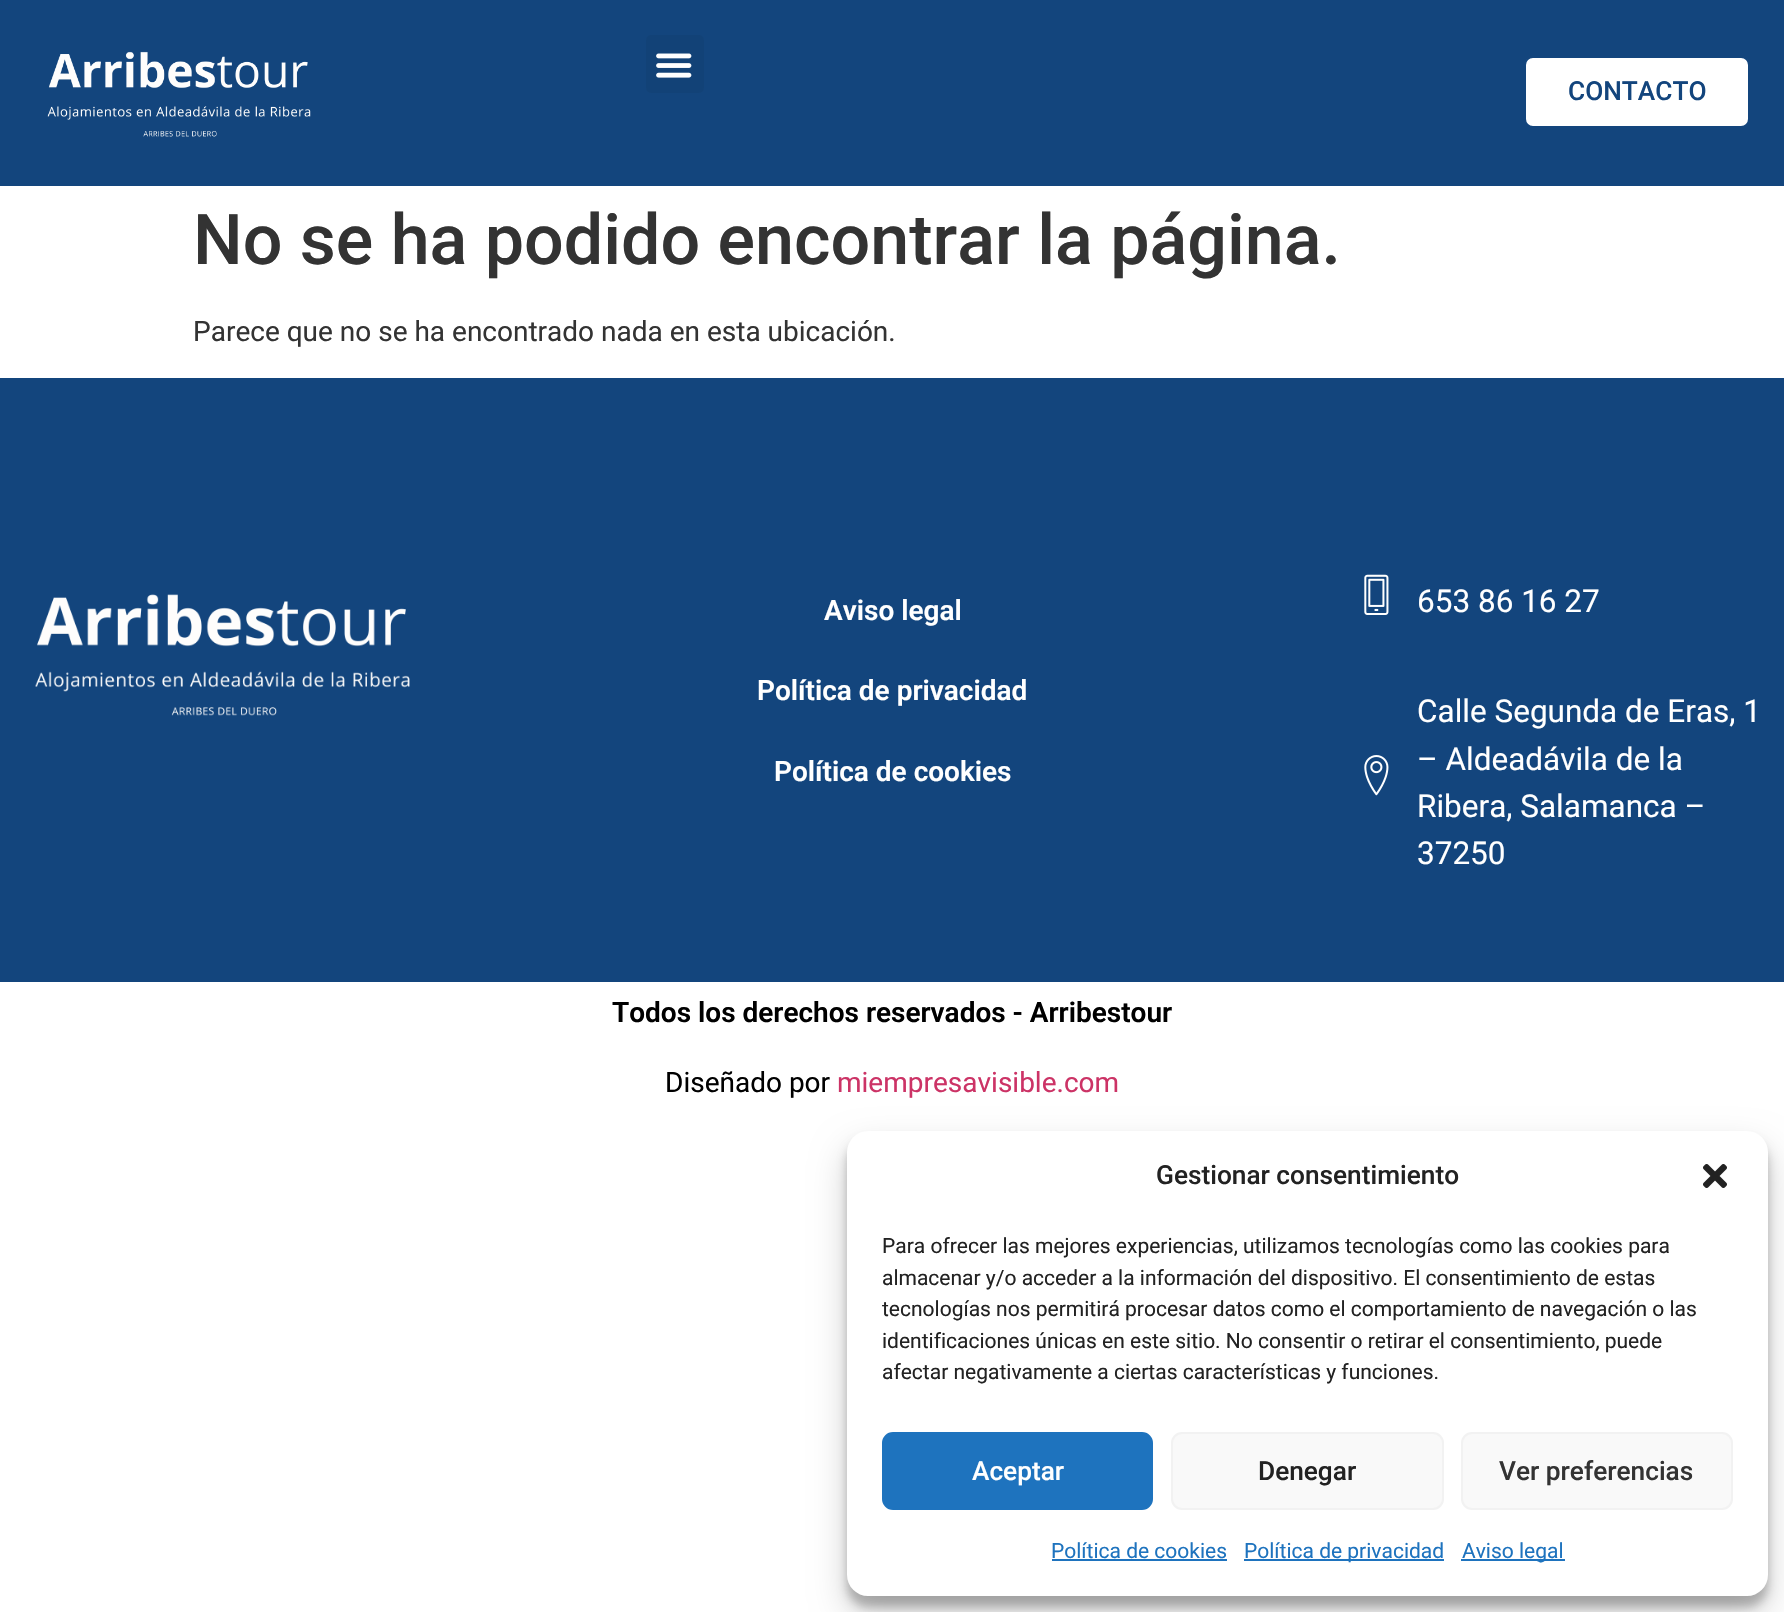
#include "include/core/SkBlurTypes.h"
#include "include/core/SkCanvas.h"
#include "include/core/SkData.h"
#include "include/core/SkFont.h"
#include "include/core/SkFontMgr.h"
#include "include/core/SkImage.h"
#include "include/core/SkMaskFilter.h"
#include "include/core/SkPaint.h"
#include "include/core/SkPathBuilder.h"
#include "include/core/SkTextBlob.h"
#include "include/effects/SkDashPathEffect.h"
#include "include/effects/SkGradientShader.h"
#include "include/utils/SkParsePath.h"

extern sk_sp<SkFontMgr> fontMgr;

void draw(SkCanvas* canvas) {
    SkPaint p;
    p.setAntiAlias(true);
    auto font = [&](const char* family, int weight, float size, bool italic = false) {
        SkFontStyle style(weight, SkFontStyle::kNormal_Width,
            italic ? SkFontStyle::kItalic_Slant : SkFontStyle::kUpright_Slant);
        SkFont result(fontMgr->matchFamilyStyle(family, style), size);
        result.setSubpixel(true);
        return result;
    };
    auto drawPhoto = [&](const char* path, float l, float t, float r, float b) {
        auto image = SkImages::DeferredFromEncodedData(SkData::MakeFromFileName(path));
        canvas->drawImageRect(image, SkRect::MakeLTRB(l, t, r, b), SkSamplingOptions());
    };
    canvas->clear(0xFFFFFFFF);
    p.setColor(0xFF13457D);
    canvas->drawRect(SkRect::MakeLTRB(0, 0, 1784, 186), p);
    drawPhoto("media/1.png", 47, 51, 311, 137);
    p.setColor(0xFF124277);
    canvas->drawRoundRect(SkRect::MakeLTRB(646, 35, 704, 93), 5, 5, p);
    drawPhoto("media/2.png", 656, 53, 692, 78);
    p.setColor(0xFFFFFFFF);
    canvas->drawRoundRect(SkRect::MakeLTRB(1525, 57, 1749, 127), 8, 8, p);
    p.setStyle(SkPaint::kStroke_Style);
    p.setStrokeWidth(2);
    p.setColor(0xFF13457D);
    canvas->drawRoundRect(SkRect::MakeLTRB(1525, 57, 1749, 127), 8, 8, p);
    auto font1 = font("Roboto", 500, 26.25f);
    p.setStyle(SkPaint::kFill_Style);
    canvas->drawString("CONTACTO", 1568, 100, font1, p);
    auto font2 = font("Roboto", 500, 70);
    p.setColor(0xFF333333);
    canvas->drawString("No se ha podido encontrar la página.", 193, 264, font2, p);
    auto font3 = font("Roboto", 400, 28);
    canvas->drawString("Parece que no se ha encontrado nada en esta ubicación.", 193, 341, font3, p);
    p.setColor(0xFF13457D);
    canvas->drawRect(SkRect::MakeLTRB(0, 378, 1784, 982), p);
    drawPhoto("media/3.png", 35, 594, 410, 716);
    auto font4 = font("Roboto", 600, 28);
    p.setColor(0xFFFFFFFF);
    {
        const struct { const char* s; float x, y; } items[] = {
            {"Aviso legal", 824, 620},
            {"Política de privacidad", 757, 700},
            {"Política de cookies", 774, 781},
        };
        for (auto [s, x, y] : items) {
            canvas->drawString(s, x, y, font4, p);
        }
    }
    drawPhoto("media/4.png", 1364, 574, 1389, 615);
    auto font5 = font("Roboto", 400, 31.5f);
    canvas->drawString("653 86 16 27", 1417, 612, font5, p);
    drawPhoto("media/5.png", 1364, 755, 1389, 796);
    {
        const struct { const char* s; float x, y; } items[] = {
            {"Calle Segunda de Eras, 1", 1417, 722},
            {"– Aldeadávila de la", 1417, 770},
            {"Ribera, Salamanca –", 1417, 817},
            {"37250", 1417, 864},
        };
        for (auto [s, x, y] : items) {
            canvas->drawString(s, x, y, font5, p);
        }
    }
    p.setColor(0xFF000000);
    canvas->drawString("Todos los derechos reservados - Arribestour", 612, 1022, font4, p);
    canvas->drawString("Diseñado por", 665, 1092, font3, p);
    p.setColor(0xFFCC3366);
    canvas->drawString("miempresavisible.com", 837, 1092, font3, p);
    p.setColor(0x3B000000);
    p.setMaskFilter(SkMaskFilter::MakeBlur(kNormal_SkBlurStyle, 5));
    canvas->drawRoundRect(SkRect::MakeLTRB(847, 1141, 1768, 1607), 21, 21, p);
    p.setMaskFilter(nullptr);
    p.setColor(0x30000000);
    p.setMaskFilter(SkMaskFilter::MakeBlur(kNormal_SkBlurStyle, 17.5f));
    canvas->drawRoundRect(SkRect::MakeLTRB(847, 1148, 1768, 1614), 21, 21, p);
    p.setMaskFilter(nullptr);
    p.setColor(0xFFFFFFFF);
    canvas->drawRoundRect(SkRect::MakeLTRB(847, 1131, 1768, 1596), 21, 21, p);
    p.setColor(0xFF222222);
    canvas->drawString("Gestionar consentimiento", 1156, 1184, font1, p);
    drawPhoto("media/6.png", 1703, 1164, 1727, 1188);
    auto font6 = font("Roboto", 400, 21);
    {
        const struct { const char* s; float x, y; } items[] = {
            {"Para ofrecer las mejores experiencias, utilizamos tecnologías como las cookies para", 882, 1253},
            {"almacenar y/o acceder a la información del dispositivo. El consentimiento de estas", 882, 1285},
            {"tecnologías nos permitirá procesar datos como el comportamiento de navegación o las", 882, 1316},
            {"identificaciones únicas en este sitio. No consentir o retirar el consentimiento, puede", 882, 1348},
            {"afectar negativamente a ciertas características y funciones.", 882, 1379},
        };
        for (auto [s, x, y] : items) {
            canvas->drawString(s, x, y, font6, p);
        }
    }
    p.setColor(0xFF1E73BE);
    canvas->drawRoundRect(SkRect::MakeLTRB(883, 1433, 1152, 1509), 10, 10, p);
    p.setStyle(SkPaint::kStroke_Style);
    canvas->drawRoundRect(SkRect::MakeLTRB(883, 1433, 1152, 1509), 10, 10, p);
    p.setStyle(SkPaint::kFill_Style);
    p.setColor(0xFFFFFFFF);
    canvas->drawString("Aceptar", 972, 1480, font1, p);
    p.setColor(0xFFF9F9F9);
    canvas->drawRoundRect(SkRect::MakeLTRB(1172, 1433, 1443, 1509), 10, 10, p);
    p.setStyle(SkPaint::kStroke_Style);
    p.setColor(0xFFF2F2F2);
    canvas->drawRoundRect(SkRect::MakeLTRB(1172, 1433, 1443, 1509), 10, 10, p);
    p.setStyle(SkPaint::kFill_Style);
    p.setColor(0xFF222222);
    canvas->drawString("Denegar", 1258, 1480, font1, p);
    p.setColor(0xFFF9F9F9);
    canvas->drawRoundRect(SkRect::MakeLTRB(1462, 1433, 1732, 1509), 10, 10, p);
    p.setStyle(SkPaint::kStroke_Style);
    p.setColor(0xFFF2F2F2);
    canvas->drawRoundRect(SkRect::MakeLTRB(1462, 1433, 1732, 1509), 10, 10, p);
    p.setStyle(SkPaint::kFill_Style);
    p.setColor(0xFF333333);
    canvas->drawString("Ver preferencias", 1499, 1480, font1, p);
    p.setColor(0xFF1E73BE);
    canvas->drawString("Política de cookies", 1051, 1558, font6, p);
    canvas->drawRect(SkRect::MakeLTRB(1052, 1559, 1227, 1561), p);
    canvas->drawRect(SkRect::MakeLTRB(1244, 1559, 1444, 1561), p);
    canvas->drawString("Política de privacidad", 1244, 1558, font6, p);
    canvas->drawRect(SkRect::MakeLTRB(1461, 1559, 1565, 1561), p);
    canvas->drawString("Aviso legal", 1462, 1558, font6, p);
}
